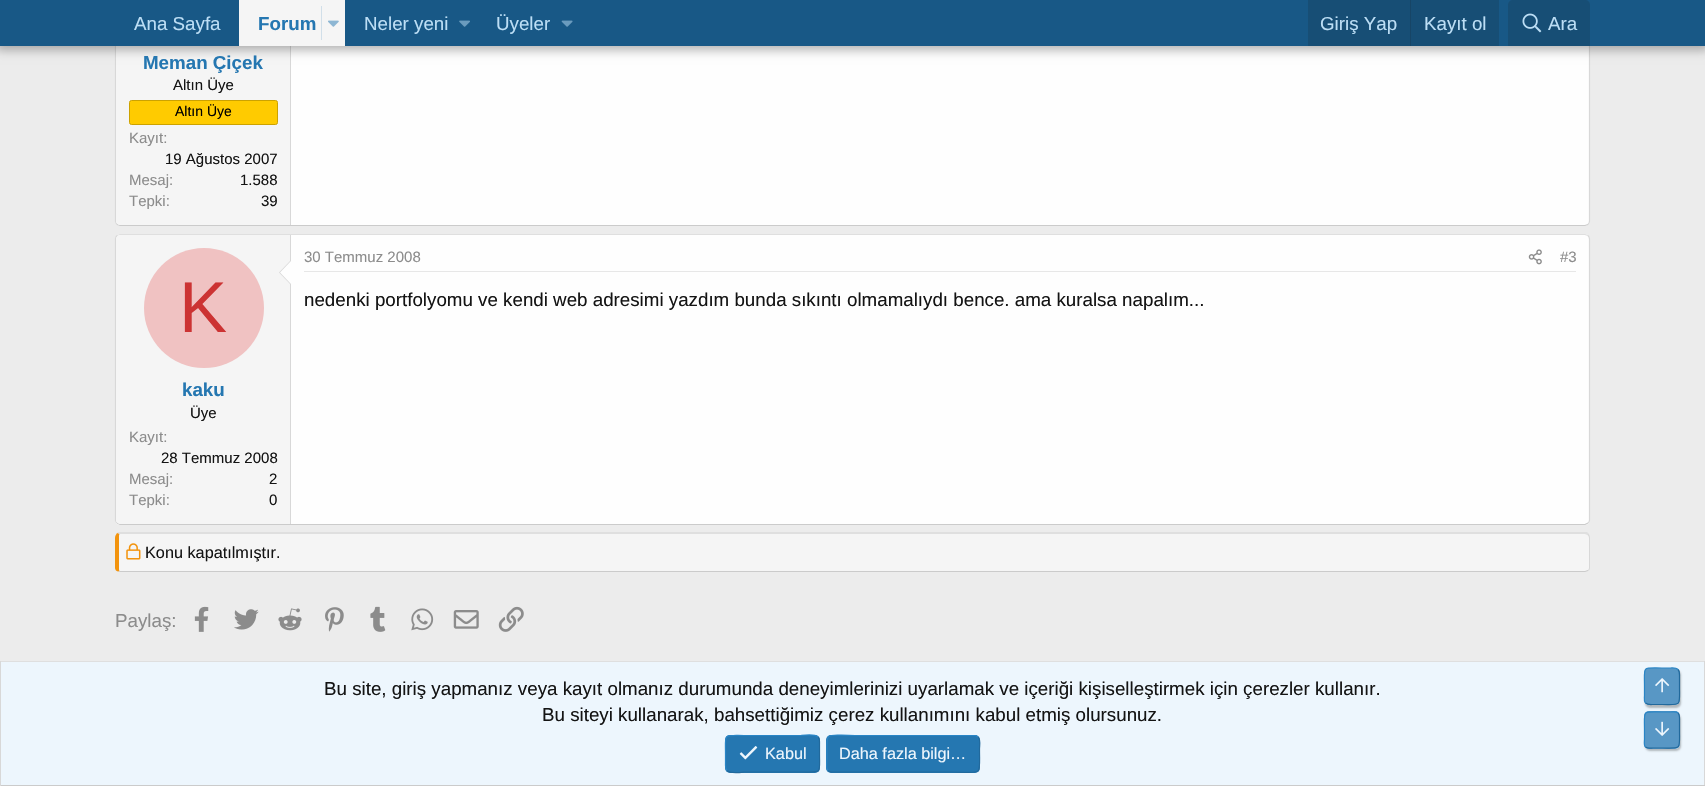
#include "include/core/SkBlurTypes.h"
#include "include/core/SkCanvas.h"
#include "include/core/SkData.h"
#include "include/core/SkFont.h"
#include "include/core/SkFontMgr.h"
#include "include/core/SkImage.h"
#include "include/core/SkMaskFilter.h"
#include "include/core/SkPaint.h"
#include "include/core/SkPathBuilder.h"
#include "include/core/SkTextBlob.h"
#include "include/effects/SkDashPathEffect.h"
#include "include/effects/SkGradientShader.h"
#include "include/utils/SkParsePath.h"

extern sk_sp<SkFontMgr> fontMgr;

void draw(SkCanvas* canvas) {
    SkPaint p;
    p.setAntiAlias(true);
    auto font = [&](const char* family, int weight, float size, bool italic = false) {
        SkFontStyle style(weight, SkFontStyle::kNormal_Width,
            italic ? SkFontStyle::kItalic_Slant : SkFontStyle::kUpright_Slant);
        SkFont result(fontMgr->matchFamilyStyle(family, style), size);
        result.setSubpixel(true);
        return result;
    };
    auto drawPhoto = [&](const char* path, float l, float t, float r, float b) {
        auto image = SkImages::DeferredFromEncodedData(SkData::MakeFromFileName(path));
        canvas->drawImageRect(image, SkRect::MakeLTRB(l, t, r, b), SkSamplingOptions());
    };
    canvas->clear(0xFFECECEC);
    p.setColor(0xFFFEFEFE);
    canvas->drawRoundRect(SkRect::MakeLTRB(115, -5, 1590, 226), 5, 5, p);
    p.setStyle(SkPaint::kStroke_Style);
    p.setStrokeWidth(1.2f);
    p.setColor(0xFFD8D8D8);
    canvas->drawPath(SkPathBuilder().moveTo(1588, -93).cubicTo(1589, -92.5f, 1589.5f, -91, 1589.5f, -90).lineTo(1589.5f, 221).cubicTo(1589.5f, 222.5f, 1589, 223.5f, 1588, 224.5f).detach(), p);
    p.setColor(0xFFCBCBCB);
    canvas->drawPath(SkPathBuilder().moveTo(1588, 224.5f).lineTo(1585, 225.5f).lineTo(120, 225.5f).lineTo(117, 224.5f).detach(), p);
    p.setColor(0xFFD8D8D8);
    canvas->drawPath(SkPathBuilder().moveTo(117, 224.5f).cubicTo(116, 223.5f, 115.5f, 222.5f, 115.5f, 221).lineTo(115.5f, -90).cubicTo(115.5f, -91, 116, -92.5f, 117, -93).detach(), p);
    p.setStyle(SkPaint::kFill_Style);
    p.setColor(0xFFF5F5F5);
    canvas->drawPath(SkPathBuilder().moveTo(120, -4).lineTo(291, -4).lineTo(291, 225).lineTo(120, 225).cubicTo(118, 225, 116, 223, 116, 221).lineTo(116, 0).cubicTo(116, -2, 118, -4, 120, -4).close().detach(), p);
    p.setColor(0xFFD8D8D8);
    canvas->drawRect(SkRect::MakeLTRB(290, 46, 291, 225), p);
    p.setColor(0x4D000000);
    p.setMaskFilter(SkMaskFilter::MakeBlur(kNormal_SkBlurStyle, 5));
    canvas->drawRect(SkRect::MakeLTRB(-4, -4, 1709, 50), p);
    p.setMaskFilter(nullptr);
    p.setColor(0xFF185886);
    canvas->drawRect(SkRect::MakeLTRB(0, 0, 1705, 46), p);
    auto font1 = font("Liberation Sans", 400, 18.75f);
    p.setColor(0xFFBCDEF5);
    canvas->drawString("Ana Sayfa", 134, 30, font1, p);
    p.setColor(0xFFF5F5F5);
    canvas->drawRect(SkRect::MakeLTRB(239, 0, 345, 46), p);
    auto font2 = font("Liberation Sans", 700, 18.75f);
    p.setColor(0xFF2577B1);
    canvas->drawString("Forum", 258, 30, font2, p);
    p.setColor(0xFFD1DFE9);
    canvas->drawRect(SkRect::MakeLTRB(321, 6, 322, 40), p);
    drawPhoto("media/1.png", 328, 20, 339, 27);
    p.setColor(0xFFBCDEF5);
    canvas->drawString("Neler yeni", 364, 30, font1, p);
    drawPhoto("media/2.png", 459, 20, 470, 27);
    canvas->drawString("Üyeler", 496, 30, font1, p);
    drawPhoto("media/3.png", 561, 20, 573, 27);
    p.setColor(0xFF174E75);
    canvas->drawRect(SkRect::MakeLTRB(1308, 0, 1499, 46), p);
    p.setColor(0xFFBCDEF5);
    canvas->drawString("Giriş Yap", 1320, 30, font1, p);
    p.setColor(0xFF174566);
    canvas->drawRect(SkRect::MakeLTRB(1410, 0, 1411, 46), p);
    p.setColor(0xFFBCDEF5);
    canvas->drawString("Kayıt ol", 1424, 30, font1, p);
    p.setColor(0xFF174E75);
    canvas->drawPath(SkPathBuilder().moveTo(1513, 0).lineTo(1585, 0).cubicTo(1588, 0, 1590, 2, 1590, 5).lineTo(1590, 46).lineTo(1508, 46).lineTo(1508, 5).cubicTo(1508, 2, 1510, 0, 1513, 0).close().detach(), p);
    drawPhoto("media/4.png", 1522, 13, 1542, 33);
    p.setColor(0xFFBCDEF5);
    canvas->drawString("Ara", 1548, 30, font1, p);
    p.setColor(0xFF2577B1);
    canvas->drawString("Meman Çiçek", 143, 69, font2, p);
    auto font3 = font("Liberation Sans", 400, 15);
    p.setColor(0xFF141414);
    canvas->drawString("Altın Üye", 173, 90, font3, p);
    p.setColor(0xFFFFCB00);
    canvas->drawRoundRect(SkRect::MakeLTRB(129.5f, 100.5f, 277.5f, 124.5f), 2, 2, p);
    p.setStyle(SkPaint::kStroke_Style);
    p.setStrokeWidth(1);
    p.setColor(0xFFCCA200);
    canvas->drawRoundRect(SkRect::MakeLTRB(129.5f, 100.5f, 277.5f, 124.5f), 2, 2, p);
    auto font4 = font("Liberation Sans", 400, 14);
    p.setStyle(SkPaint::kFill_Style);
    p.setColor(0xFF000000);
    canvas->drawString("Altın Üye", 175, 116, font4, p);
    p.setColor(0xFF8C8C8C);
    canvas->drawString("Kayıt:", 129, 143, font3, p);
    p.setColor(0xFF141414);
    canvas->drawString("19 Ağustos 2007", 165, 164, font3, p);
    p.setColor(0xFF8C8C8C);
    canvas->drawString("Mesaj:", 129, 185, font3, p);
    p.setColor(0xFF141414);
    canvas->drawString("1.588", 240, 185, font3, p);
    p.setColor(0xFF8C8C8C);
    canvas->drawString("Tepki:", 129, 206, font3, p);
    p.setColor(0xFF141414);
    canvas->drawString("39", 261, 206, font3, p);
    p.setColor(0xFFFEFEFE);
    canvas->drawRoundRect(SkRect::MakeLTRB(115, 234, 1590, 525), 5, 5, p);
    p.setStyle(SkPaint::kStroke_Style);
    p.setStrokeWidth(1.2f);
    p.setColor(0xFFDFDFDF);
    canvas->drawPath(SkPathBuilder().moveTo(117, 235.5f).lineTo(120, 234.5f).lineTo(1585, 234.5f).lineTo(1588, 235.5f).detach(), p);
    p.setColor(0xFFD8D8D8);
    canvas->drawPath(SkPathBuilder().moveTo(1588, 235.5f).cubicTo(1589, 236.5f, 1589.5f, 237.5f, 1589.5f, 239).lineTo(1589.5f, 520).cubicTo(1589.5f, 521, 1589, 522.5f, 1588, 523).detach(), p);
    p.setColor(0xFFCBCBCB);
    canvas->drawPath(SkPathBuilder().moveTo(1588, 523).lineTo(1585, 524.5f).lineTo(120, 524.5f).lineTo(117, 523).detach(), p);
    p.setColor(0xFFD8D8D8);
    canvas->drawPath(SkPathBuilder().moveTo(117, 523).cubicTo(116, 522.5f, 115.5f, 521, 115.5f, 520).lineTo(115.5f, 239).cubicTo(115.5f, 237.5f, 116, 236.5f, 117, 235.5f).detach(), p);
    p.setStyle(SkPaint::kFill_Style);
    p.setColor(0xFFF5F5F5);
    canvas->drawPath(SkPathBuilder().moveTo(120, 235).lineTo(291, 235).lineTo(291, 524).lineTo(120, 524).cubicTo(118, 524, 116, 522, 116, 520).lineTo(116, 239).cubicTo(116, 237, 118, 235, 120, 235).close().detach(), p);
    p.setColor(0xFFD8D8D8);
    canvas->drawRect(SkRect::MakeLTRB(290, 235, 291, 524), p);
    canvas->drawPath(SkPathBuilder().moveTo(291, 260).lineTo(291, 285).lineTo(279, 272.5f).close().detach(), p);
    p.setColor(0xFFFEFEFE);
    canvas->drawPath(SkPathBuilder().moveTo(291, 261).lineTo(291, 284).lineTo(280, 272.5f).close().detach(), p);
    p.setColor(0xFFF0C2C2);
    canvas->drawCircle(204, 308, 60, p);
    auto font5 = font("Liberation Sans", 400, 72);
    p.setColor(0xFFCC3333);
    canvas->drawString("K", 179, 332, font5, p);
    p.setColor(0xFF2577B1);
    canvas->drawString("kaku", 182, 396, font2, p);
    p.setColor(0xFF141414);
    canvas->drawString("Üye", 190, 418, font3, p);
    p.setColor(0xFF8C8C8C);
    canvas->drawString("Kayıt:", 129, 442, font3, p);
    p.setColor(0xFF141414);
    canvas->drawString("28 Temmuz 2008", 161, 463, font3, p);
    p.setColor(0xFF8C8C8C);
    canvas->drawString("Mesaj:", 129, 484, font3, p);
    p.setColor(0xFF141414);
    canvas->drawString("2", 269, 484, font3, p);
    p.setColor(0xFF8C8C8C);
    canvas->drawString("Tepki:", 129, 505, font3, p);
    p.setColor(0xFF141414);
    canvas->drawString("0", 269, 505, font3, p);
    p.setColor(0xFFE7E7E7);
    canvas->drawRect(SkRect::MakeLTRB(304, 271, 1576, 272), p);
    p.setColor(0xFF8C8C8C);
    canvas->drawString("30 Temmuz 2008", 304, 262, font3, p);
    drawPhoto("media/5.png", 1528, 249, 1542, 265);
    canvas->drawString("#3", 1560, 262, font3, p);
    p.setColor(0xFF141414);
    canvas->drawString("nedenki portfolyomu ve kendi web adresimi yazdım bunda sıkıntı olmamalıydı bence. ama kuralsa napalım...", 304, 306, font1, p);
    p.setColor(0xFFF5F5F5);
    canvas->drawPath(SkPathBuilder().moveTo(120, 534).lineTo(1585, 534).cubicTo(1587, 534, 1589, 535, 1589, 538).lineTo(1589, 568).cubicTo(1589, 570, 1587, 571, 1585, 571).lineTo(120, 571).cubicTo(119, 571, 119, 570, 119, 568).lineTo(119, 538).cubicTo(119, 535, 119, 534, 120, 534).close().detach(), p);
    p.setColor(0xFFDFDFDF);
    canvas->drawPath(SkPathBuilder().moveTo(120, 534).lineTo(117, 533).lineTo(118, 532).lineTo(1587, 532).lineTo(1589, 534).lineTo(1588, 535).lineTo(1585, 534).close().detach(), p);
    p.setColor(0xFFD8D8D8);
    canvas->drawPath(SkPathBuilder().moveTo(1590, 568).lineTo(1590, 538).cubicTo(1590, 536.5f, 1589.5f, 535, 1588.5f, 534).lineTo(1587.5f, 535).cubicTo(1588.5f, 535.5f, 1589, 536.5f, 1589, 538).lineTo(1589, 568).cubicTo(1589, 569, 1588.5f, 570, 1588, 570).lineTo(1588.5f, 571).cubicTo(1589.5f, 570, 1590, 569, 1590, 568).close().detach(), p);
    p.setColor(0xFFCBCBCB);
    canvas->drawPath(SkPathBuilder().moveTo(1588, 571).lineTo(1585, 572).lineTo(120, 572).lineTo(118, 572).lineTo(120, 571).lineTo(1585, 571).lineTo(1588, 570).close().detach(), p);
    p.setColor(0xFFF2930D);
    canvas->drawPath(SkPathBuilder().moveTo(115, 538).lineTo(115, 568).cubicTo(115, 569.5f, 116, 571, 118, 571.5f).lineTo(119.5f, 571).cubicTo(119, 570.5f, 119, 569.5f, 119, 568).lineTo(119, 538).cubicTo(119, 535.5f, 119, 534.5f, 119.5f, 534).lineTo(117, 533).cubicTo(116, 534.5f, 115, 536, 115, 538).close().detach(), p);
    drawPhoto("media/6.png", 126, 543, 141, 560);
    auto font6 = font("Liberation Sans", 400, 16.25f);
    p.setColor(0xFF141414);
    canvas->drawString("Konu kapatılmıştır.", 145, 558, font6, p);
    p.setColor(0xFF8C8C8C);
    canvas->drawString("Paylaş:", 115, 627, font1, p);
    drawPhoto("media/7.png", 194, 606, 209, 632);
    drawPhoto("media/8.png", 234, 609, 259, 630);
    drawPhoto("media/9.png", 278, 608, 302, 631);
    drawPhoto("media/10.png", 325, 607, 344, 632);
    drawPhoto("media/11.png", 370, 606, 386, 632);
    drawPhoto("media/12.png", 411, 608, 434, 631);
    drawPhoto("media/13.png", 453, 610, 479, 629);
    drawPhoto("media/14.png", 498, 606, 524, 632);
    {
        const struct { float l, t, r, b; SkColor color; } items[] = {
            {1, 662, 1704, 785, 0xFFEDF6FD},
            {0, 661, 1705, 662, 0xFFDFDFDF},
            {1704, 661, 1705, 786, 0xFFD8D8D8},
            {0, 785, 1705, 786, 0xFFCBCBCB},
            {0, 661, 1, 786, 0xFFD8D8D8},
        };
        for (auto [l, t, r, b, color] : items) {
            p.setColor(color);
            canvas->drawRect(SkRect::MakeLTRB(l, t, r, b), p);
        }
    }
    p.setColor(0xFF141414);
    canvas->drawString("Bu site, giriş yapmanız veya kayıt olmanız durumunda deneyimlerinizi uyarlamak ve içeriği kişiselleştirmek için çerezler kullanır.", 324, 695, font1, p);
    canvas->drawString("Bu siteyi kullanarak, bahsettiğimiz çerez kullanımını kabul etmiş olursunuz.", 542, 721, font1, p);
    p.setColor(0xFF2577B1);
    canvas->drawRoundRect(SkRect::MakeLTRB(725, 735, 820, 773), 5, 5, p);
    p.setStyle(SkPaint::kStroke_Style);
    p.setColor(0xFF21699C);
    canvas->drawPath(SkPathBuilder().moveTo(818, 737).cubicTo(820, 739, 819.5f, 742, 819.5f, 744.5f).lineTo(819.5f, 754).cubicTo(819.5f, 774.5f, 822.5f, 772, 801, 772).lineTo(744, 772).cubicTo(743.5f, 772, 730.5f, 774, 727, 770.5f).detach(), p);
    p.setColor(0xFF2985C6);
    canvas->drawPath(SkPathBuilder().moveTo(727, 770.5f).cubicTo(725, 768.5f, 725.5f, 765.5f, 725.5f, 763).lineTo(725.5f, 754).cubicTo(725.5f, 733, 722.5f, 735.5f, 744, 735.5f).lineTo(801, 735.5f).cubicTo(801.5f, 735.5f, 814.5f, 733.5f, 818, 737).detach(), p);
    drawPhoto("media/15.png", 739, 746, 758, 760);
    p.setStyle(SkPaint::kFill_Style);
    p.setColor(0xFFEDF6FD);
    canvas->drawString("Kabul", 765, 759, font6, p);
    p.setColor(0xFF2577B1);
    canvas->drawRoundRect(SkRect::MakeLTRB(826, 735, 980, 773), 5, 5, p);
    p.setStyle(SkPaint::kStroke_Style);
    p.setColor(0xFF21699C);
    canvas->drawPath(SkPathBuilder().moveTo(978, 737).cubicTo(981, 739.5f, 979.5f, 746, 979.5f, 749).cubicTo(979.5f, 778, 983.5f, 772, 951, 772).lineTo(830.5f, 772).lineTo(828, 770.5f).detach(), p);
    p.setColor(0xFF2985C6);
    canvas->drawPath(SkPathBuilder().moveTo(828, 770.5f).cubicTo(825.5f, 768, 827, 761.5f, 827, 758.5f).cubicTo(827, 729.5f, 823, 735.5f, 855, 735.5f).lineTo(976, 735.5f).lineTo(978, 737).detach(), p);
    p.setStyle(SkPaint::kFill_Style);
    p.setColor(0xFFEDF6FD);
    canvas->drawString("Daha fazla bilgi…", 839, 759, font6, p);
    canvas->save();
    canvas->clipPath(SkPathBuilder(SkPathFillType::kEvenOdd).moveTo(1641, 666).lineTo(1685, 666).lineTo(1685, 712).lineTo(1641, 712).close().moveTo(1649, 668).lineTo(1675, 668).cubicTo(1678, 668, 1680, 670, 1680, 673).lineTo(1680, 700).cubicTo(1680, 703, 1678, 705, 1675, 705).lineTo(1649, 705).cubicTo(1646, 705, 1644, 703, 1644, 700).lineTo(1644, 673).cubicTo(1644, 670, 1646, 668, 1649, 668).close().detach(), true);
    p.setColor(0x40000000);
    p.setMaskFilter(SkMaskFilter::MakeBlur(kNormal_SkBlurStyle, 1));
    canvas->drawRoundRect(SkRect::MakeLTRB(1645, 670, 1681, 708), 5, 5, p);
    p.setMaskFilter(nullptr);
    canvas->restore();
    p.setColor(0xBF2577B1);
    canvas->drawRoundRect(SkRect::MakeLTRB(1644, 668, 1680, 705), 5, 5, p);
    p.setStyle(SkPaint::kStroke_Style);
    p.setColor(0xFF21699C);
    canvas->drawPath(SkPathBuilder().moveTo(1678, 669.5f).cubicTo(1680, 671.5f, 1679.5f, 674.5f, 1679.5f, 677).lineTo(1679.5f, 686).cubicTo(1679.5f, 707, 1682, 704.5f, 1662, 704.5f).lineTo(1653, 704.5f).cubicTo(1651, 704.5f, 1647.5f, 705, 1645.5f, 703).detach(), p);
    p.setColor(0xFF2985C6);
    canvas->drawPath(SkPathBuilder().moveTo(1645.5f, 703).cubicTo(1643.5f, 701, 1644.5f, 698, 1644.5f, 695.5f).lineTo(1644.5f, 686).cubicTo(1644.5f, 665.5f, 1641.5f, 668, 1662, 668).lineTo(1670.5f, 668).cubicTo(1673, 668, 1676, 667.5f, 1678, 669.5f).detach(), p);
    drawPhoto("media/16.png", 1655, 678, 1670, 693);
    canvas->save();
    canvas->clipPath(SkPathBuilder(SkPathFillType::kEvenOdd).moveTo(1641, 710).lineTo(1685, 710).lineTo(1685, 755).lineTo(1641, 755).close().moveTo(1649, 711).lineTo(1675, 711).cubicTo(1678, 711, 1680, 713, 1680, 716).lineTo(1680, 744).cubicTo(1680, 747, 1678, 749, 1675, 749).lineTo(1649, 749).cubicTo(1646, 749, 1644, 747, 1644, 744).lineTo(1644, 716).cubicTo(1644, 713, 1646, 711, 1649, 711).close().detach(), true);
    p.setStyle(SkPaint::kFill_Style);
    p.setColor(0x40000000);
    p.setMaskFilter(SkMaskFilter::MakeBlur(kNormal_SkBlurStyle, 1));
    canvas->drawRoundRect(SkRect::MakeLTRB(1645, 714, 1681, 751), 5, 5, p);
    p.setMaskFilter(nullptr);
    canvas->restore();
    p.setColor(0xBF2577B1);
    canvas->drawRoundRect(SkRect::MakeLTRB(1644, 711, 1680, 749), 5, 5, p);
    p.setStyle(SkPaint::kStroke_Style);
    p.setColor(0xFF21699C);
    canvas->drawPath(SkPathBuilder().moveTo(1678, 713).cubicTo(1680, 715, 1679.5f, 718.5f, 1679.5f, 721).lineTo(1679.5f, 730).cubicTo(1679.5f, 750.5f, 1682, 748, 1662, 748).lineTo(1653, 748).cubicTo(1651, 748, 1647.5f, 749, 1645.5f, 747).detach(), p);
    p.setColor(0xFF2985C6);
    canvas->drawPath(SkPathBuilder().moveTo(1645.5f, 747).cubicTo(1643.5f, 745, 1644.5f, 741.5f, 1644.5f, 739).lineTo(1644.5f, 730).cubicTo(1644.5f, 709.5f, 1641.5f, 712, 1662, 712).lineTo(1670.5f, 712).cubicTo(1673, 712, 1676, 711, 1678, 713).detach(), p);
    drawPhoto("media/17.png", 1655, 721, 1670, 736);
}
